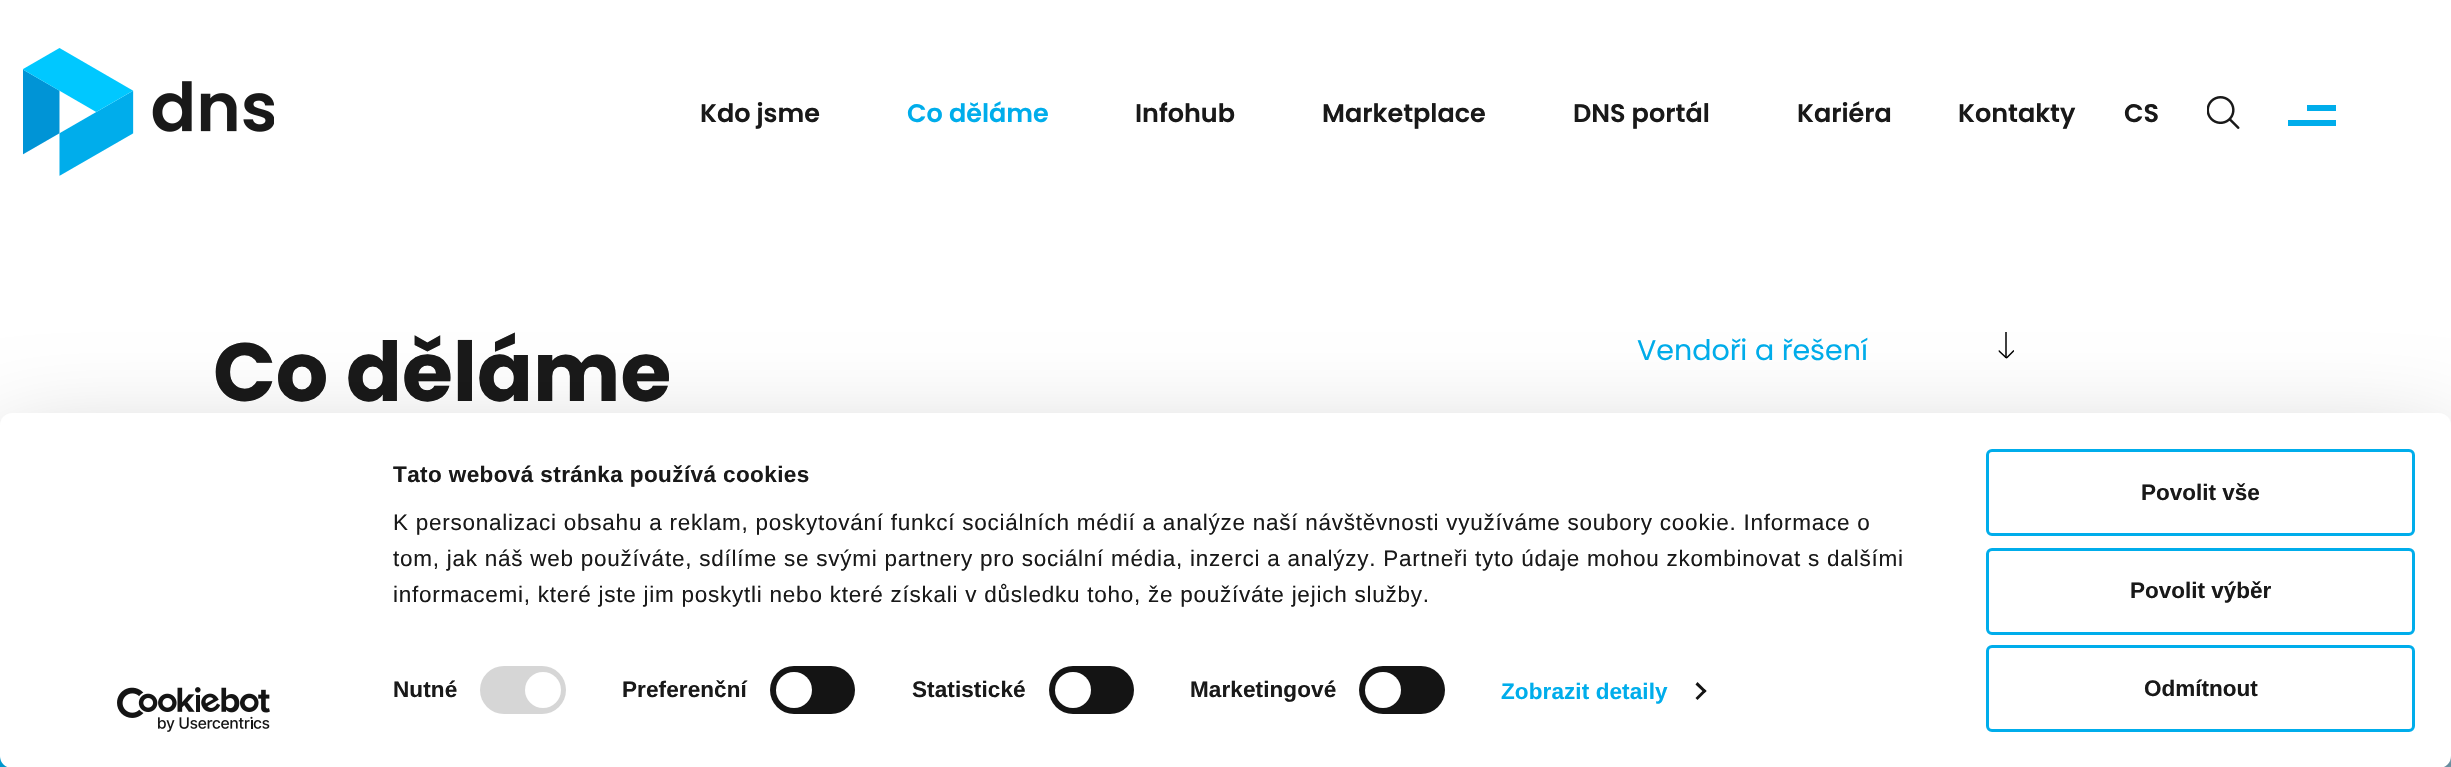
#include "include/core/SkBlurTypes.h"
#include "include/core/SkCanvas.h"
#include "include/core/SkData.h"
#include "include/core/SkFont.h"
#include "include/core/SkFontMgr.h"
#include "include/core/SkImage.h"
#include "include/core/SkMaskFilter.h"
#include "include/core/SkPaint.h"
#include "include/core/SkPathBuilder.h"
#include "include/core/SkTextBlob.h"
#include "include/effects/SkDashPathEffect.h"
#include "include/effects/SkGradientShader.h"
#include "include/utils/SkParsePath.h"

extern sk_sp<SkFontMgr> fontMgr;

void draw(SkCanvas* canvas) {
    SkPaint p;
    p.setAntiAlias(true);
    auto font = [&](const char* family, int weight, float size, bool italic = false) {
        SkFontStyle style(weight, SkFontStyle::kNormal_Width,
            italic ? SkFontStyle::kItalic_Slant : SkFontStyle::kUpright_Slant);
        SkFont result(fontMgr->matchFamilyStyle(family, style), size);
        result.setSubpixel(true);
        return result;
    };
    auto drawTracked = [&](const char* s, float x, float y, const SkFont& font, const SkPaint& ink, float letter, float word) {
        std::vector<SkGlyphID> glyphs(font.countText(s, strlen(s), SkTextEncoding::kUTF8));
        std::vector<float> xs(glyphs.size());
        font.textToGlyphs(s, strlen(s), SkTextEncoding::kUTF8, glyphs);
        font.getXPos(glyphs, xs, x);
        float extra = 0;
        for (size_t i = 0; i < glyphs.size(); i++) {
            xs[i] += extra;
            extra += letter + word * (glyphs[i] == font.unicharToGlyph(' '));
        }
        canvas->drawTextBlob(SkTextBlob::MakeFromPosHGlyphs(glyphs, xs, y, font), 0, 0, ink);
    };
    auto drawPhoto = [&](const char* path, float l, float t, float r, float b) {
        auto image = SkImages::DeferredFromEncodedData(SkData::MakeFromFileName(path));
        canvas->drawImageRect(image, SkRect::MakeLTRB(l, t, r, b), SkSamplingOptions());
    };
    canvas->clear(0xFFFFFFFF);
    drawPhoto("media/1.png", 23, 48, 274, 176);
    auto font1 = font("Poppins", 600, 25.5f);
    p.setColor(0xFF191919);
    canvas->drawString("Kdo jsme", 700, 122, font1, p);
    p.setColor(0xFF00ADEB);
    canvas->drawString("Co děláme", 907, 122, font1, p);
    p.setColor(0xFF191919);
    {
        const struct { const char* s; float x, y; } items[] = {
            {"Infohub", 1135, 122},
            {"Marketplace", 1322, 122},
            {"DNS portál", 1573, 122},
            {"Kariéra", 1797, 122},
            {"Kontakty", 1958, 122},
            {"CS", 2124, 122},
        };
        for (auto [s, x, y] : items) {
            canvas->drawString(s, x, y, font1, p);
        }
    }
    drawPhoto("media/2.png", 2207, 96, 2240, 129);
    p.setColor(0xFF00ADEB);
    canvas->drawRect(SkRect::MakeLTRB(2307, 105, 2336, 111), p);
    canvas->drawRect(SkRect::MakeLTRB(2288, 120, 2336, 126), p);
    auto font2 = font("Poppins", 700, 82.5f);
    p.setColor(0xFF191919);
    canvas->drawString("Co děláme", 213, 401, font2, p);
    auto font3 = font("Poppins", 400, 28.5f);
    p.setColor(0xFF00ADEB);
    canvas->drawString("Vendoři a řešení", 1637, 360, font3, p);
    canvas->save();
    canvas->clipPath(SkPathBuilder().moveTo(2014, 331.5f).lineTo(2014, 358.5f).lineTo(1998.5f, 358.5f).lineTo(1998.5f, 331.5f).close().detach(), true);
    p.setStyle(SkPaint::kStroke_Style);
    p.setStrokeWidth(1.5f);
    p.setColor(0xFF000000);
    canvas->drawPath(SkPathBuilder().moveTo(2014, 350.5f).lineTo(2006.5f, 358).lineTo(1998.5f, 350.5f).detach(), p);
    canvas->restore();
    p.setStyle(SkPaint::kFill_Style);
    p.setColor(0xBF000000);
    canvas->drawRect(SkRect::MakeLTRB(2005, 332, 2007, 358), p);
    drawPhoto("media/3.png", 0, 756, 2451, 767);
    p.setColor(0x4D000000);
    p.setMaskFilter(SkMaskFilter::MakeBlur(kNormal_SkBlurStyle, 52.5f));
    canvas->drawRoundRect(SkRect::MakeLTRB(0, 458, 2451, 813), 12, 12, p);
    p.setMaskFilter(nullptr);
    p.setColor(0xFFFFFFFF);
    canvas->drawRoundRect(SkRect::MakeLTRB(0, 413, 2451, 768), 12, 12, p);
    auto font4 = font("Liberation Sans", 700, 22.5f);
    p.setColor(0xFF191919);
    drawTracked("Tato webová stránka používá cookies", 393, 482, font4, p, 0.4f, 0);
    auto font5 = font("Liberation Sans", 400, 22.5f);
    {
        const struct { const char* s; float x, y; } items[] = {
            {"K personalizaci obsahu a reklam, poskytování funkcí sociálních médií a analýze naší návštěvnosti využíváme soubory cookie. Informace o", 393, 530},
            {"tom, jak náš web používáte, sdílíme se svými partnery pro sociální média, inzerci a analýzy. Partneři tyto údaje mohou zkombinovat s dalšími", 393, 566},
            {"informacemi, které jste jim poskytli nebo které získali v důsledku toho, že používáte jejich služby.", 393, 602},
        };
        for (auto [s, x, y] : items) {
            drawTracked(s, x, y, font5, p, 0.75f, 0);
        }
    }
    drawTracked("Nutné", 393, 697, font4, p, 0.1f, 0);
    p.setColor(0xFFD6D6D6);
    canvas->drawRoundRect(SkRect::MakeLTRB(480, 666, 566, 714), 24, 24, p);
    p.setColor(0xFFFFFFFF);
    canvas->drawCircle(543, 690, 18, p);
    p.setColor(0xFF191919);
    drawTracked("Preferenční", 622, 697, font4, p, 0.1f, 0);
    p.setColor(0xFF141414);
    canvas->drawRoundRect(SkRect::MakeLTRB(770, 666, 855, 714), 24, 24, p);
    p.setColor(0xFFFFFFFF);
    canvas->drawCircle(794, 690, 18, p);
    p.setColor(0xFF191919);
    drawTracked("Statistické", 912, 697, font4, p, 0.1f, 0);
    p.setColor(0xFF141414);
    canvas->drawRoundRect(SkRect::MakeLTRB(1049, 666, 1134, 714), 24, 24, p);
    p.setColor(0xFFFFFFFF);
    canvas->drawCircle(1073, 690, 18, p);
    p.setColor(0xFF191919);
    drawTracked("Marketingové", 1190, 697, font4, p, 0.1f, 0);
    p.setColor(0xFF141414);
    canvas->drawRoundRect(SkRect::MakeLTRB(1359, 666, 1445, 714), 24, 24, p);
    p.setColor(0xFFFFFFFF);
    canvas->drawCircle(1383, 690, 18, p);
    p.setColor(0xFF00ADEB);
    drawTracked("Zobrazit detaily", 1501, 699, font4, p, 0.1f, 0);
    p.setColor(0xFF141414);
    canvas->drawPath(SkPathBuilder().moveTo(1697.5f, 682).lineTo(1706.5f, 691).lineTo(1704.5f, 693).lineTo(1695.5f, 684.5f).close().detach(), p);
    canvas->drawPath(SkPathBuilder().moveTo(1704.5f, 689).lineTo(1706.5f, 691).lineTo(1697.5f, 700).lineTo(1695.5f, 698).close().detach(), p);
    p.setStyle(SkPaint::kStroke_Style);
    p.setStrokeWidth(3);
    p.setColor(0xFF00ADEB);
    canvas->drawRoundRect(SkRect::MakeLTRB(1987.5f, 450.5f, 2413.5f, 534.5f), 4.5f, 4.5f, p);
    p.setStyle(SkPaint::kFill_Style);
    p.setColor(0xFF191919);
    canvas->drawString("Povolit vše", 2141, 500, font4, p);
    p.setStyle(SkPaint::kStroke_Style);
    p.setColor(0xFF00ADEB);
    canvas->drawRoundRect(SkRect::MakeLTRB(1987.5f, 549.5f, 2413.5f, 633.5f), 4.5f, 4.5f, p);
    p.setStyle(SkPaint::kFill_Style);
    p.setColor(0xFF191919);
    canvas->drawString("Povolit výběr", 2130, 598, font4, p);
    p.setStyle(SkPaint::kStroke_Style);
    p.setColor(0xFF00ADEB);
    canvas->drawRoundRect(SkRect::MakeLTRB(1987.5f, 646.5f, 2413.5f, 730.5f), 4.5f, 4.5f, p);
    p.setStyle(SkPaint::kFill_Style);
    p.setColor(0xFF191919);
    canvas->drawString("Odmítnout", 2144, 696, font4, p);
    drawPhoto("media/4.png", 117, 687, 270, 732);
}
